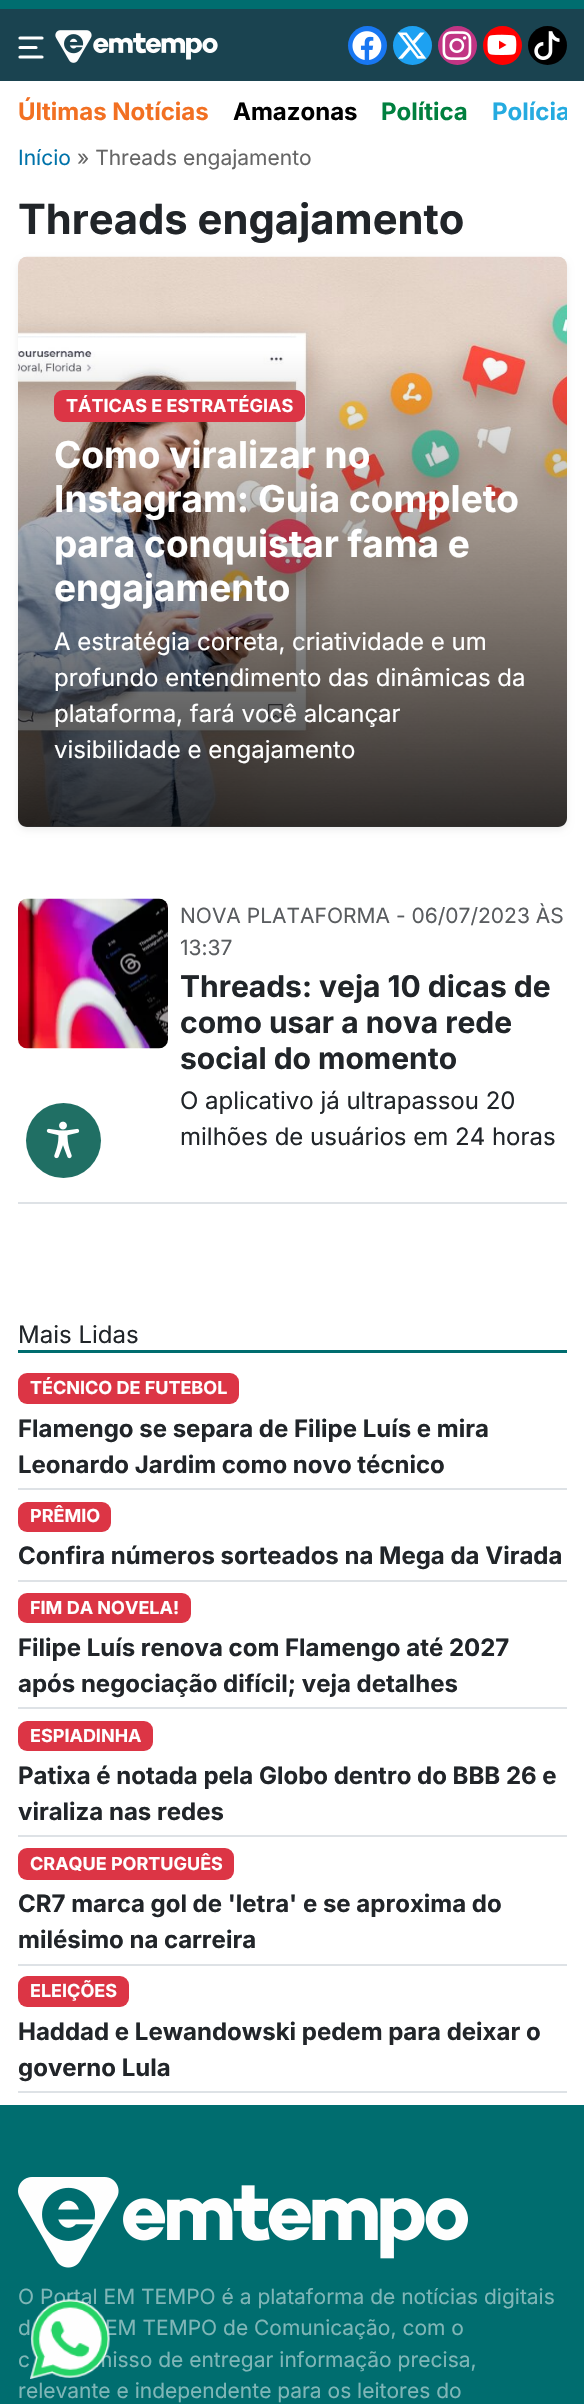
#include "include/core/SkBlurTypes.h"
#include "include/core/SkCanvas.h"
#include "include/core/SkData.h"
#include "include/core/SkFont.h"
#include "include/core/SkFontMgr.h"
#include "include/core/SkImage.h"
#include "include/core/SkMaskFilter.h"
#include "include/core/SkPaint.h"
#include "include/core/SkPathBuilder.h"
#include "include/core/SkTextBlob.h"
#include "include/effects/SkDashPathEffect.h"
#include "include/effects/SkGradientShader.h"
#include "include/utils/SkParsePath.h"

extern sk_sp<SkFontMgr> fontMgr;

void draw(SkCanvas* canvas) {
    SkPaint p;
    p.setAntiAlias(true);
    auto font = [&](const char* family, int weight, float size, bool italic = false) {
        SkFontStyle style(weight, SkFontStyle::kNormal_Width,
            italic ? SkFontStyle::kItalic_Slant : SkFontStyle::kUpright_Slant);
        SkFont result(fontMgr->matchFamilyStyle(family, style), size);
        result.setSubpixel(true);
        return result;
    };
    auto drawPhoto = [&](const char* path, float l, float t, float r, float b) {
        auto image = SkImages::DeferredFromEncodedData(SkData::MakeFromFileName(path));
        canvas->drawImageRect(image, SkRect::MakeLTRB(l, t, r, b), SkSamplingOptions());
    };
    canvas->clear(0xFFFFFFFF);
    p.setColor(0xFF006D6F);
    canvas->drawRect(SkRect::MakeLTRB(0, 0, 584, 9), p);
    p.setColor(0xFF1A4350);
    canvas->drawRect(SkRect::MakeLTRB(0, 9, 584, 81), p);
    p.setStyle(SkPaint::kStroke_Style);
    p.setStrokeWidth(3.2f);
    p.setStrokeCap(SkPaint::kRound_Cap);
    p.setColor(0xFFFFFFFF);
    canvas->drawPath(SkPathBuilder().moveTo(20, 38).lineTo(42, 38).moveTo(20, 47.5f).lineTo(36, 47.5f).moveTo(20, 57).lineTo(42, 57).detach(), p);
    drawPhoto("media/1.png", 55, 30, 218, 63);
    p.setStyle(SkPaint::kFill_Style);
    p.setColor(0xFF1877F2);
    canvas->drawCircle(367.5f, 45.5f, 19.5f, p);
    drawPhoto("media/2.png", 352, 31, 382, 60);
    p.setColor(0xFF1DA1F2);
    canvas->drawCircle(412.5f, 45.5f, 19.5f, p);
    drawPhoto("media/3.png", 397, 32, 427, 59);
    p.setColor(0xFFC13584);
    canvas->drawCircle(457.5f, 45.5f, 19.5f, p);
    drawPhoto("media/4.png", 442, 31, 472, 60);
    p.setColor(0xFFFF0000);
    canvas->drawCircle(502.5f, 45.5f, 19.5f, p);
    drawPhoto("media/5.png", 487, 34, 517, 55);
    p.setColor(0xFF000000);
    canvas->drawCircle(547.5f, 45.5f, 19.5f, p);
    drawPhoto("media/6.png", 534, 31, 560, 60);
    auto font1 = font("Inter", 700, 24);
    p.setColor(0xFFF27022);
    canvas->drawString("Últimas Notícias", 18, 120, font1, p);
    p.setColor(0xFF000000);
    canvas->drawString("Amazonas", 233, 120, font1, p);
    p.setColor(0xFF00803F);
    canvas->drawString("Política", 381, 120, font1, p);
    canvas->save();
    canvas->clipRect(SkRect::MakeLTRB(18, 81, 567, 141));
    p.setColor(0xFF25ABE0);
    canvas->drawString("Polícia", 492, 120, font1, p);
    canvas->restore();
    auto font2 = font("Inter", 400, 21);
    p.setColor(0xFF0073AA);
    canvas->drawString("Início", 18, 165, font2, p);
    p.setColor(0xFF666666);
    canvas->drawString("» Threads engajamento", 77, 165, font2, p);
    auto font3 = font("Inter", 700, 41.75f);
    p.setColor(0xFF212529);
    canvas->drawString("Threads engajamento", 18, 234, font3, p);
    p.setColor(0x12000000);
    p.setMaskFilter(SkMaskFilter::MakeBlur(kNormal_SkBlurStyle, 3));
    canvas->drawRoundRect(SkRect::MakeLTRB(18, 260, 567, 830), 9, 9, p);
    p.setMaskFilter(nullptr);
    drawPhoto("media/7.png", 18, 256, 567, 827);
    {
        const SkColor colors[] = {0xCC000000, 0x00000000};
        const float stops[] = {0, 1};
        const SkPoint ends[] = {{293, 827}, {293, 350}};
        p.setShader(SkGradientShader::MakeLinear(ends, colors, stops, 2, SkTileMode::kClamp));
        p.setAlpha(255);
    }
    canvas->drawPath(SkPathBuilder().moveTo(18, 350).lineTo(567, 350).lineTo(567, 818).cubicTo(567, 823, 563, 827, 558, 827).lineTo(27, 827).cubicTo(22, 827, 18, 823, 18, 818).close().detach(), p);
    p.setShader(nullptr);
    p.setColor(0xFFDC3545);
    canvas->drawRoundRect(SkRect::MakeLTRB(54, 390, 305, 422), 9, 9, p);
    auto font4 = font("Inter", 700, 18);
    p.setColor(0xFFFFFFFF);
    canvas->drawString("TÁTICAS E ESTRATÉGIAS", 66, 412, font4, p);
    auto font5 = font("Inter", 700, 37);
    {
        const struct { const char* s; float x, y; } items[] = {
            {"Como viralizar no", 54, 468},
            {"Instagram: Guia completo", 54, 512},
            {"para conquistar fama e", 54, 557},
            {"engajamento", 54, 601},
        };
        for (auto [s, x, y] : items) {
            canvas->drawString(s, x, y, font5, p);
        }
    }
    auto font6 = font("Inter", 400, 24);
    {
        const struct { const char* s; float x, y; } items[] = {
            {"A estratégia correta, criatividade e um", 54, 650},
            {"profundo entendimento das dinâmicas da", 54, 686},
            {"plataforma, fará você alcançar", 54, 722},
            {"visibilidade e engajamento", 54, 758},
        };
        for (auto [s, x, y] : items) {
            canvas->drawString(s, x, y, font6, p);
        }
    }
    p.setColor(0xFFDEE2E6);
    canvas->drawRect(SkRect::MakeLTRB(18, 1202, 567, 1204), p);
    drawPhoto("media/8.png", 18, 898, 168, 1049);
    p.setColor(0xFF595C5F);
    canvas->drawString("NOVA PLATAFORMA - 06/07/2023 ÀS", 180, 923, font2, p);
    canvas->drawString("13:37", 180, 955, font2, p);
    auto font7 = font("Inter", 700, 30);
    p.setColor(0xFF212529);
    {
        const struct { const char* s; float x, y; } items[] = {
            {"Threads: veja 10 dicas de", 180, 997},
            {"como usar a nova rede", 180, 1033},
            {"social do momento", 180, 1069},
        };
        for (auto [s, x, y] : items) {
            canvas->drawString(s, x, y, font7, p);
        }
    }
    canvas->drawString("O aplicativo já ultrapassou 20", 180, 1109, font6, p);
    canvas->drawString("milhões de usuários em 24 horas", 180, 1145, font6, p);
    p.setColor(0xFF006D6F);
    canvas->drawRect(SkRect::MakeLTRB(18, 1350, 567, 1353), p);
    p.setColor(0xFF212529);
    canvas->drawString("Mais Lidas", 18, 1343, font6, p);
    p.setColor(0xFFDEE2E6);
    canvas->drawRect(SkRect::MakeLTRB(18, 1488, 567, 1490), p);
    p.setColor(0xFFDC3545);
    canvas->drawRoundRect(SkRect::MakeLTRB(18, 1373, 239, 1404), 9, 9, p);
    p.setColor(0xFFFFFFFF);
    canvas->drawString("TÉCNICO DE FUTEBOL", 30, 1394, font4, p);
    p.setColor(0xFF212529);
    canvas->drawString("Flamengo se separa de Filipe Luís e mira", 18, 1437, font1, p);
    canvas->drawString("Leonardo Jardim como novo técnico", 18, 1473, font1, p);
    p.setColor(0xFFDEE2E6);
    canvas->drawRect(SkRect::MakeLTRB(18, 1580, 567, 1582), p);
    p.setColor(0xFFDC3545);
    canvas->drawRoundRect(SkRect::MakeLTRB(18, 1502, 111, 1532), 9, 9, p);
    p.setColor(0xFFFFFFFF);
    canvas->drawString("PRÊMIO", 30, 1522, font4, p);
    p.setColor(0xFF212529);
    canvas->drawString("Confira números sorteados na Mega da Virada", 18, 1564, font1, p);
    p.setColor(0xFFDEE2E6);
    canvas->drawRect(SkRect::MakeLTRB(18, 1707, 567, 1709), p);
    p.setColor(0xFFDC3545);
    canvas->drawRoundRect(SkRect::MakeLTRB(18, 1593, 191, 1623), 9, 9, p);
    p.setColor(0xFFFFFFFF);
    canvas->drawString("FIM DA NOVELA!", 30, 1614, font4, p);
    p.setColor(0xFF212529);
    canvas->drawString("Filipe Luís renova com Flamengo até 2027", 18, 1656, font1, p);
    canvas->drawString("após negociação difícil; veja detalhes", 18, 1692, font1, p);
    p.setColor(0xFFDEE2E6);
    canvas->drawRect(SkRect::MakeLTRB(18, 1835, 567, 1837), p);
    p.setColor(0xFFDC3545);
    canvas->drawRoundRect(SkRect::MakeLTRB(18, 1721, 153, 1751), 9, 9, p);
    p.setColor(0xFFFFFFFF);
    canvas->drawString("ESPIADINHA", 30, 1742, font4, p);
    p.setColor(0xFF212529);
    canvas->drawString("Patixa é notada pela Globo dentro do BBB 26 e", 18, 1784, font1, p);
    canvas->drawString("viraliza nas redes", 18, 1820, font1, p);
    p.setColor(0xFFDEE2E6);
    canvas->drawRect(SkRect::MakeLTRB(18, 1964, 567, 1966), p);
    p.setColor(0xFFDC3545);
    canvas->drawRoundRect(SkRect::MakeLTRB(18, 1848, 234, 1880), 9, 9, p);
    p.setColor(0xFFFFFFFF);
    canvas->drawString("CRAQUE PORTUGUÊS", 30, 1870, font4, p);
    p.setColor(0xFF212529);
    canvas->drawString("CR7 marca gol de 'letra' e se aproxima do", 18, 1912, font1, p);
    canvas->drawString("milésimo na carreira", 18, 1948, font1, p);
    p.setColor(0xFFDEE2E6);
    canvas->drawRect(SkRect::MakeLTRB(18, 2091, 567, 2093), p);
    p.setColor(0xFFDC3545);
    canvas->drawRoundRect(SkRect::MakeLTRB(18, 1976, 129, 2007), 9, 9, p);
    p.setColor(0xFFFFFFFF);
    canvas->drawString("ELEIÇÕES", 30, 1997, font4, p);
    p.setColor(0xFF212529);
    canvas->drawString("Haddad e Lewandowski pedem para deixar o", 18, 2040, font1, p);
    canvas->drawString("governo Lula", 18, 2076, font1, p);
    p.setColor(0xFF206F64);
    canvas->drawCircle(63.5f, 1140.5f, 37.5f, p);
    drawPhoto("media/9.png", 46, 1121, 80, 1159);
    p.setColor(0xFF006D6F);
    canvas->drawRect(SkRect::MakeLTRB(0, 2105, 584, 2404), p);
    drawPhoto("media/10.png", 18, 2177, 468, 2268);
    p.setColor(0xFF80B6B7);
    {
        const struct { const char* s; float x, y; } items[] = {
            {"O Portal EM TEMPO é a plataforma de notícias digitais", 18, 2304},
            {"d", 18, 2335},
            {"EM TEMPO de Comunicação, com o", 105, 2335},
            {"c", 18, 2367},
            {"misso de entregar informação precisa,", 94, 2367},
            {"relevante e independente para os leitores do", 18, 2398},
        };
        for (auto [s, x, y] : items) {
            canvas->drawString(s, x, y, font2, p);
        }
    }
    drawPhoto("media/11.png", 30, 2299, 110, 2379);
}
